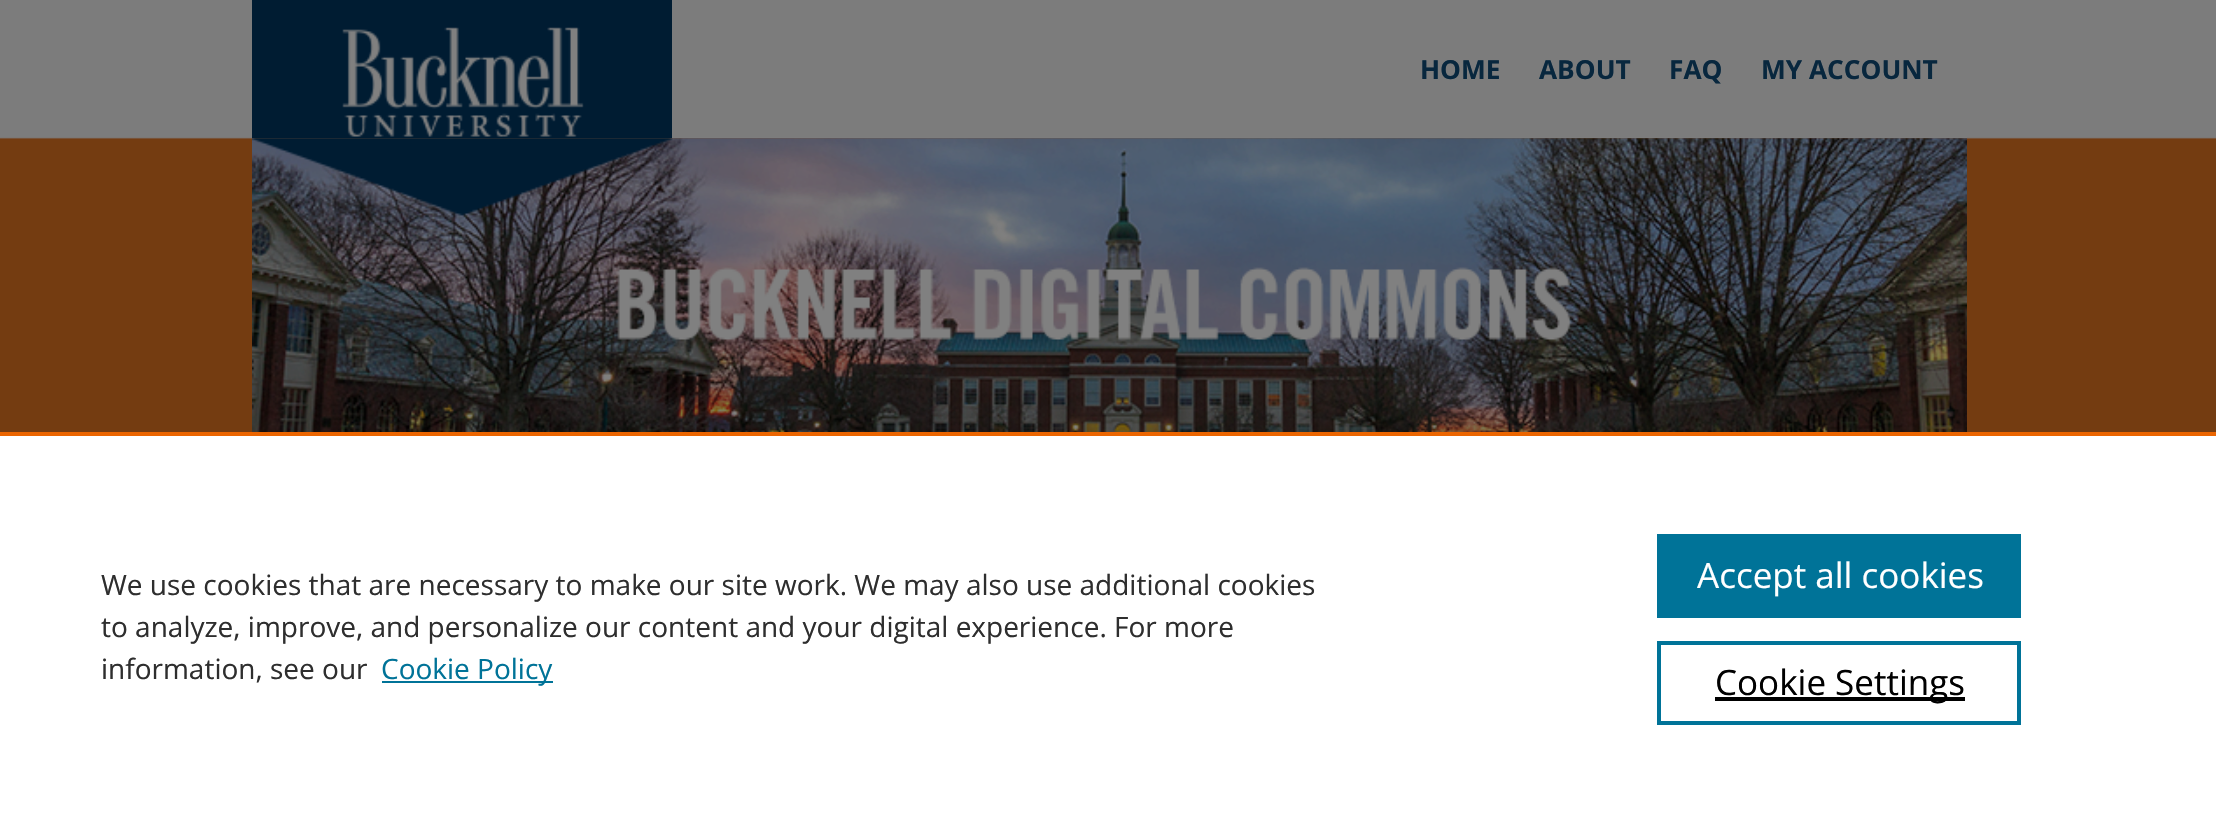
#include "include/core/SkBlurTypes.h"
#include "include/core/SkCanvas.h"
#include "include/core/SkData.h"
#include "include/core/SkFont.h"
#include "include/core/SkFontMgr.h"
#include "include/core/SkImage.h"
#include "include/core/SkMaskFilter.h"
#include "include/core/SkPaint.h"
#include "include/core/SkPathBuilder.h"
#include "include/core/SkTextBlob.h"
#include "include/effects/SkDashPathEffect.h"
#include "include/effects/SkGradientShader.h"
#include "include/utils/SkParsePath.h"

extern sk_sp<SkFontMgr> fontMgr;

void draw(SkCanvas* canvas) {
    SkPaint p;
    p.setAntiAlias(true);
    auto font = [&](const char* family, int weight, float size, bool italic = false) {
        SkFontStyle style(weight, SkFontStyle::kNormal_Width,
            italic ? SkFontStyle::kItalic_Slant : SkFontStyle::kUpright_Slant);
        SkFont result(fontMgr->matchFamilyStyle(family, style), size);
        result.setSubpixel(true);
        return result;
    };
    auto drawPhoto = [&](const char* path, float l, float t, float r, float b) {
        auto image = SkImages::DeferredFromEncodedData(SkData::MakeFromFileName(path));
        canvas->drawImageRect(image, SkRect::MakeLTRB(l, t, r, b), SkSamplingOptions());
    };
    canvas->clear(0xFFFFFFFF);
    drawPhoto("media/1.png", 0, 0, 2216, 432);
    p.setColor(0xFF7D7D7D);
    canvas->drawRect(SkRect::MakeLTRB(672, 137, 1967, 138), p);
    drawPhoto("media/2.png", 252, 0, 672, 139);
    auto font1 = font("Open Sans", 700, 26.25f);
    p.setColor(0xFF08273E);
    {
        const struct { const char* s; float x, y; } items[] = {
            {"HOME", 1420, 79},
            {"ABOUT", 1539, 79},
            {"FAQ", 1669, 79},
            {"MY ACCOUNT", 1761, 79},
        };
        for (auto [s, x, y] : items) {
            canvas->drawString(s, x, y, font1, p);
        }
    }
    drawPhoto("media/3.png", 252, 138, 1967, 432);
    p.setColor(0xFFEB6500);
    canvas->drawRect(SkRect::MakeLTRB(0, 432, 2216, 436), p);
    auto font2 = font("Open Sans", 400, 28);
    p.setColor(0xFF2E2E2E);
    {
        const struct { const char* s; float x, y; } items[] = {
            {"We use cookies that are necessary to make our site work. We may also use additional cookies", 101, 595},
            {"to analyze, improve, and personalize our content and your digital experience. For more", 101, 637},
            {"information, see our", 101, 679},
        };
        for (auto [s, x, y] : items) {
            canvas->drawString(s, x, y, font2, p);
        }
    }
    p.setColor(0xFF007398);
    canvas->drawRect(SkRect::MakeLTRB(382, 681, 553, 683), p);
    canvas->drawString("Cookie Policy", 381, 679, font2, p);
    canvas->drawRect(SkRect::MakeLTRB(1657, 534, 2021, 618), p);
    auto font3 = font("Open Sans", 400, 35);
    p.setColor(0xFFFFFFFF);
    canvas->drawString("Accept all cookies", 1697, 588, font3, p);
    p.setStyle(SkPaint::kStroke_Style);
    p.setStrokeWidth(4);
    p.setColor(0xFF007398);
    canvas->drawRect(SkRect::MakeLTRB(1659, 643, 2019, 723), p);
    p.setStyle(SkPaint::kFill_Style);
    p.setColor(0xFF000000);
    canvas->drawRect(SkRect::MakeLTRB(1715, 697, 1965, 701), p);
    canvas->drawString("Cookie Settings", 1715, 695, font3, p);
}
